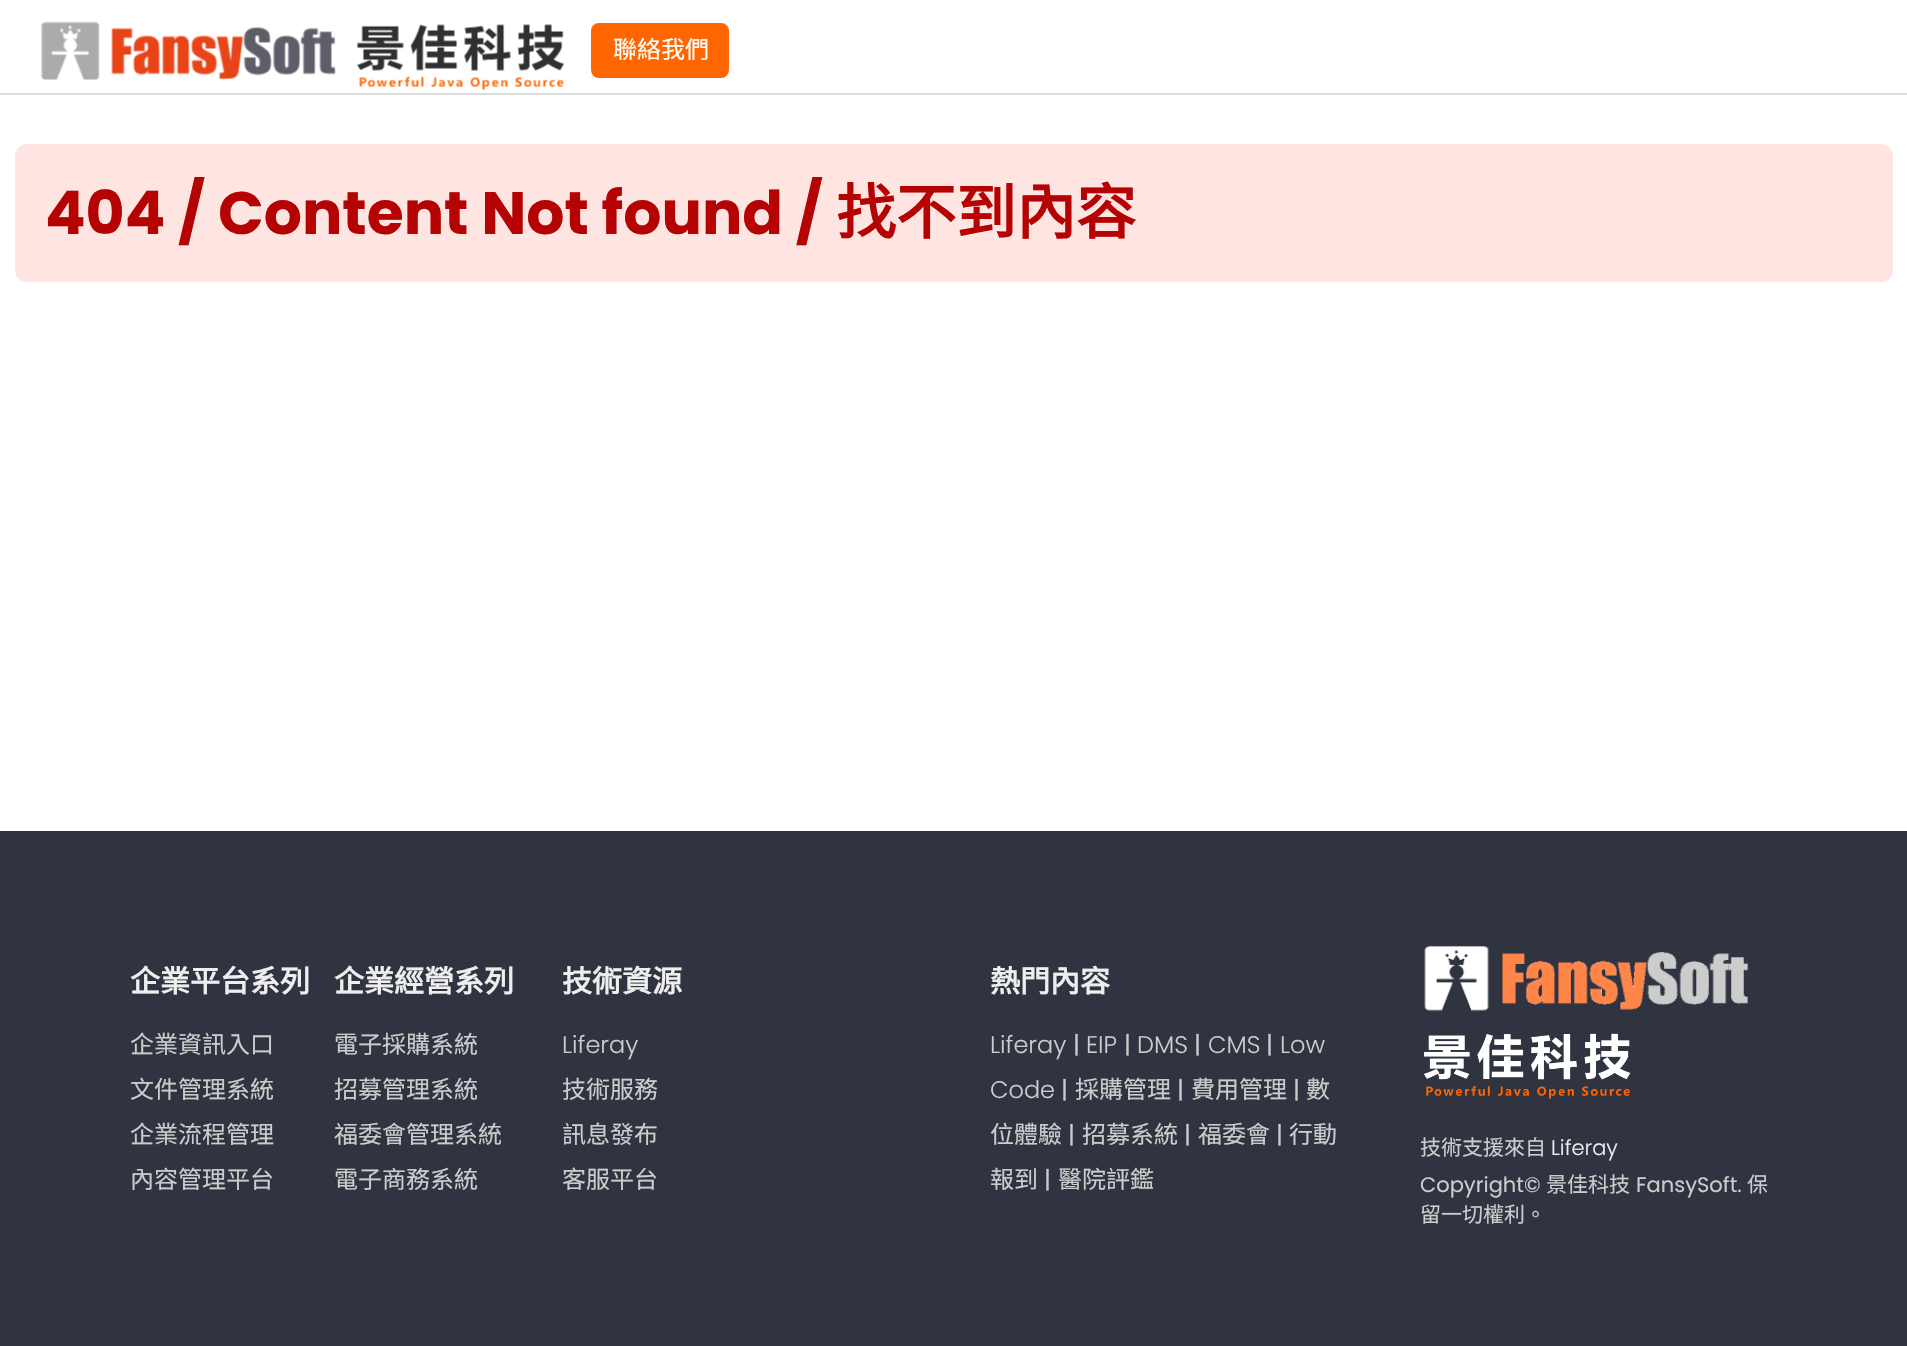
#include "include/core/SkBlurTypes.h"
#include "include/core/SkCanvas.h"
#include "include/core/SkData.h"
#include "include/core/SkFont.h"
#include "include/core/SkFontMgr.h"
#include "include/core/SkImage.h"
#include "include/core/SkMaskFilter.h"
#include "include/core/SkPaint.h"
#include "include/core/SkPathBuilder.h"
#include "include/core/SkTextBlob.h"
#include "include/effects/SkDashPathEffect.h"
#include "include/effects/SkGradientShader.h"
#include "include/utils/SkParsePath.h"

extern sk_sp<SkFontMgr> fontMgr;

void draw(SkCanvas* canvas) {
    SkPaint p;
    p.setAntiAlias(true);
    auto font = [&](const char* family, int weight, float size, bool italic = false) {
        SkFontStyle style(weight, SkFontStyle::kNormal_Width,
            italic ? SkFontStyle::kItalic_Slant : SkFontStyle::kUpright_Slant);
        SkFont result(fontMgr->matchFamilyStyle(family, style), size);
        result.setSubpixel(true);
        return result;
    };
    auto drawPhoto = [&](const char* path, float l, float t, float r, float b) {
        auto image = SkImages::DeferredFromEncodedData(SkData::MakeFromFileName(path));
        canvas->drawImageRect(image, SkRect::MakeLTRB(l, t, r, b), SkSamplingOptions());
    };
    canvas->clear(0xFFFFFFFF);
    p.setColor(0xFFDDDDDD);
    canvas->drawRect(SkRect::MakeLTRB(0, 93, 1907, 95), p);
    drawPhoto("media/1.png", 40, 21, 336, 81);
    drawPhoto("media/2.png", 357, 24, 565, 91);
    p.setColor(0xFFFF6600);
    canvas->drawRoundRect(SkRect::MakeLTRB(591, 23, 729, 78), 8, 8, p);
    auto font1 = font("Noto Sans CJK TC", 400, 24);
    p.setColor(0xFFFFFFFF);
    canvas->drawString("聯絡我們", 613, 58, font1, p);
    p.setColor(0xFFFEE5E2);
    canvas->drawRoundRect(SkRect::MakeLTRB(15, 144, 1893, 282), 12, 12, p);
    auto font2 = font("Poppins", 700, 60);
    p.setColor(0xFFB50303);
    canvas->drawString("404 / Content Not found /", 45, 234, font2, p);
    auto font3 = font("Noto Sans CJK TC", 700, 60);
    canvas->drawString("找不到內容", 836, 234, font3, p);
    p.setColor(0xFF303440);
    canvas->drawRect(SkRect::MakeLTRB(0, 831, 1907, 1346), p);
    auto font4 = font("Noto Sans CJK TC", 700, 30);
    p.setColor(0xFFEEEEEE);
    canvas->drawString("企業平台系列", 130, 992, font4, p);
    p.setColor(0xFFCCCCCC);
    {
        const struct { const char* s; float x, y; } items[] = {
            {"企業資訊入口", 130, 1053},
            {"文件管理系統", 130, 1098},
            {"企業流程管理", 130, 1143},
            {"內容管理平台", 130, 1188},
        };
        for (auto [s, x, y] : items) {
            canvas->drawString(s, x, y, font1, p);
        }
    }
    p.setColor(0xFFEEEEEE);
    canvas->drawString("企業經營系列", 334, 992, font4, p);
    p.setColor(0xFFCCCCCC);
    {
        const struct { const char* s; float x, y; } items[] = {
            {"電子採購系統", 334, 1053},
            {"招募管理系統", 334, 1098},
            {"福委會管理系統", 334, 1143},
            {"電子商務系統", 334, 1188},
        };
        for (auto [s, x, y] : items) {
            canvas->drawString(s, x, y, font1, p);
        }
    }
    p.setColor(0xFFEEEEEE);
    canvas->drawString("技術資源", 562, 992, font4, p);
    auto font5 = font("Poppins", 300, 24);
    p.setColor(0xFFCCCCCC);
    canvas->drawString("Liferay", 562, 1053, font5, p);
    {
        const struct { const char* s; float x, y; } items[] = {
            {"技術服務", 562, 1098},
            {"訊息發布", 562, 1143},
            {"客服平台", 562, 1188},
        };
        for (auto [s, x, y] : items) {
            canvas->drawString(s, x, y, font1, p);
        }
    }
    p.setColor(0xFFEEEEEE);
    canvas->drawString("熱門內容", 990, 992, font4, p);
    p.setColor(0xFFCCCCCC);
    canvas->drawString("Liferay", 990, 1053, font5, p);
    auto font6 = font("Poppins", 400, 24);
    canvas->drawString("|", 1073, 1053, font6, p);
    canvas->drawString("EIP", 1086, 1053, font5, p);
    canvas->drawString("|", 1124, 1053, font6, p);
    canvas->drawString("DMS", 1137, 1053, font5, p);
    canvas->drawString("|", 1194, 1053, font6, p);
    canvas->drawString("CMS", 1208, 1053, font5, p);
    canvas->drawString("|", 1266, 1053, font6, p);
    canvas->drawString("Low", 1280, 1053, font5, p);
    canvas->drawString("Code", 990, 1098, font5, p);
    canvas->drawString("|", 1061, 1098, font6, p);
    canvas->drawString("採購管理", 1075, 1098, font1, p);
    canvas->drawString("|", 1177, 1098, font6, p);
    canvas->drawString("費用管理", 1191, 1098, font1, p);
    canvas->drawString("|", 1293, 1098, font6, p);
    canvas->drawString("數", 1306, 1098, font1, p);
    canvas->drawString("位體驗", 990, 1143, font1, p);
    canvas->drawString("|", 1068, 1143, font6, p);
    canvas->drawString("招募系統", 1082, 1143, font1, p);
    canvas->drawString("|", 1184, 1143, font6, p);
    canvas->drawString("福委會", 1198, 1143, font1, p);
    canvas->drawString("|", 1276, 1143, font6, p);
    canvas->drawString("行動", 1289, 1143, font1, p);
    canvas->drawString("報到", 990, 1188, font1, p);
    canvas->drawString("|", 1044, 1188, font6, p);
    canvas->drawString("醫院評鑑", 1058, 1188, font1, p);
    drawPhoto("media/3.png", 1424, 946, 1748, 1011);
    drawPhoto("media/4.png", 1423, 1033, 1631, 1099);
    auto font7 = font("Noto Sans CJK TC", 400, 21);
    canvas->drawString("技術支援來自", 1420, 1155, font7, p);
    auto font8 = font("Poppins", 300, 21);
    p.setColor(0xFFEEEEEE);
    canvas->drawString("Liferay", 1551, 1155, font8, p);
    auto font9 = font("Poppins", 400, 21);
    p.setColor(0xFFCCCCCC);
    canvas->drawString("Copyright©", 1420, 1192, font9, p);
    canvas->drawString("景佳科技", 1546, 1192, font7, p);
    canvas->drawString("FansySoft.", 1636, 1192, font9, p);
    canvas->drawString("保", 1747, 1192, font7, p);
    canvas->drawString("留一切權利。", 1420, 1222, font7, p);
}
